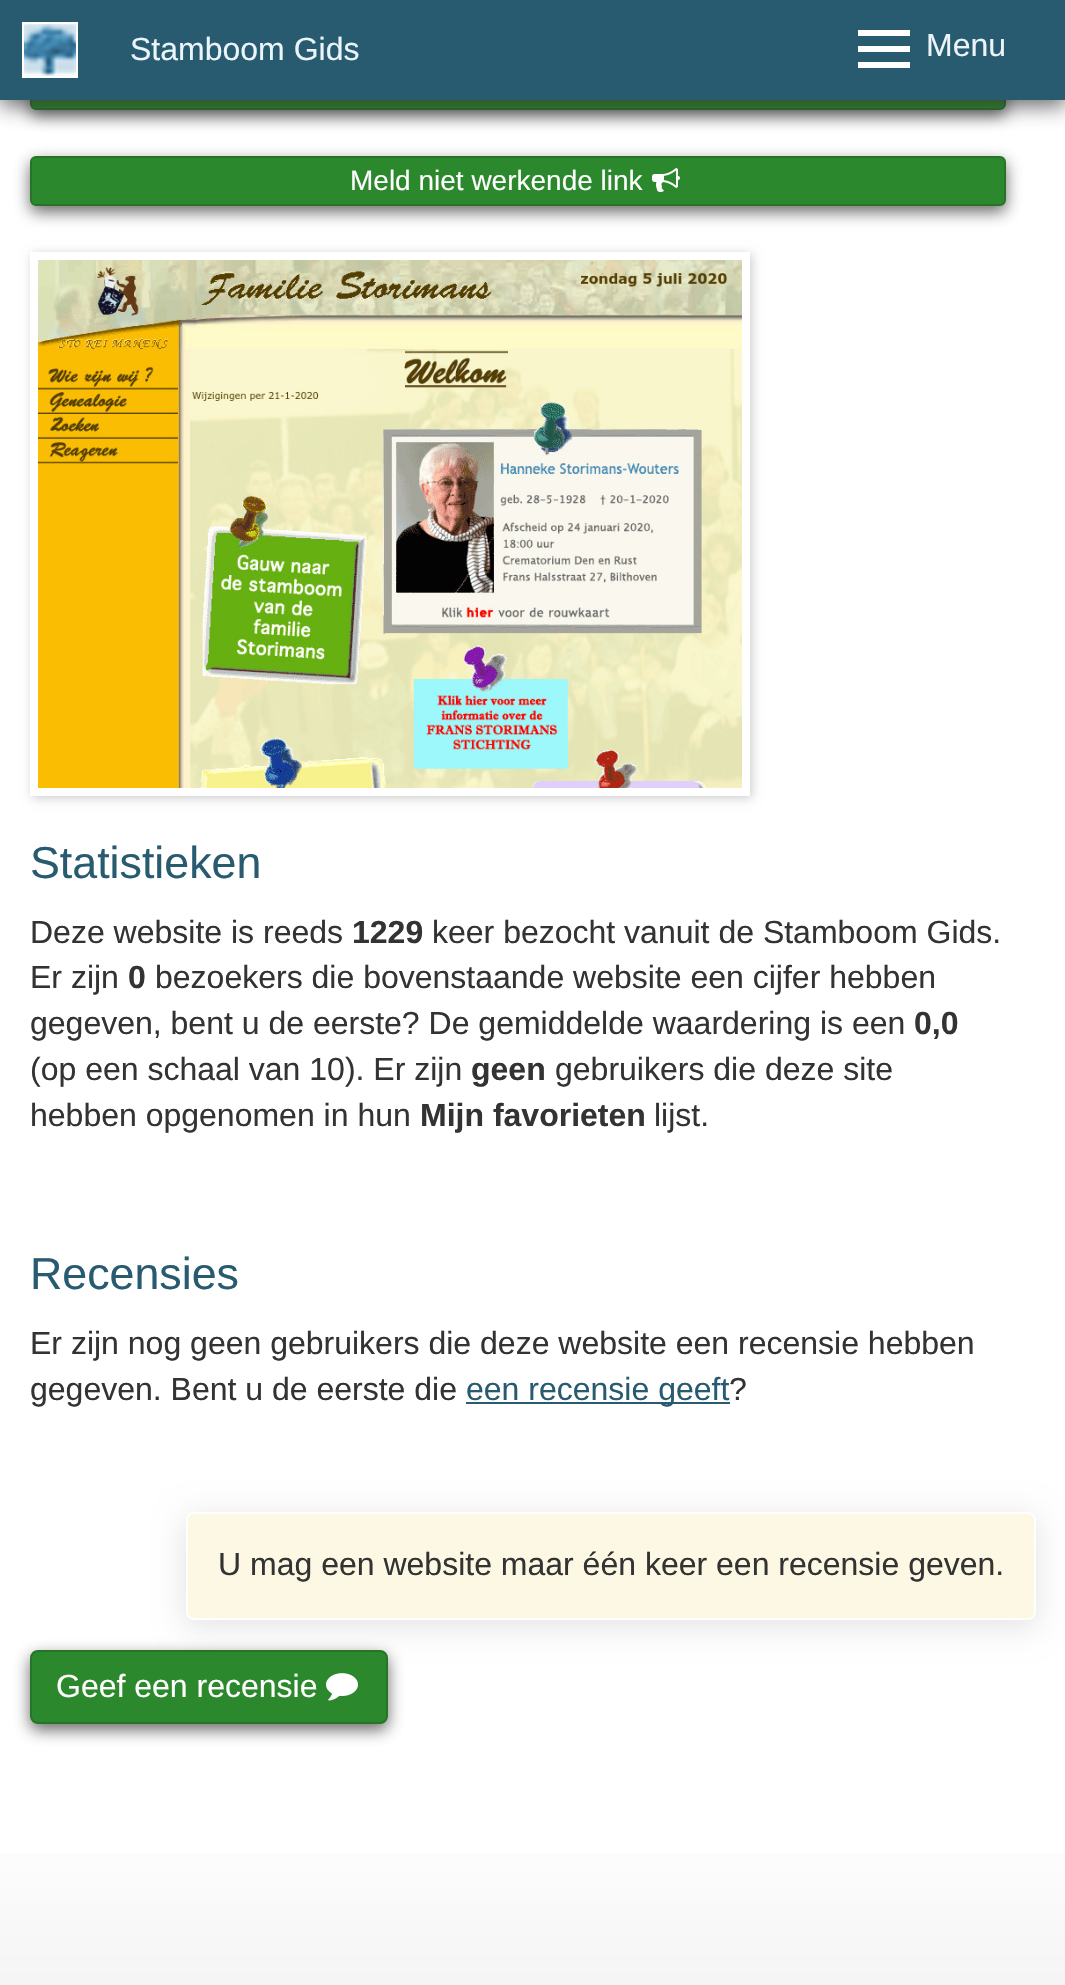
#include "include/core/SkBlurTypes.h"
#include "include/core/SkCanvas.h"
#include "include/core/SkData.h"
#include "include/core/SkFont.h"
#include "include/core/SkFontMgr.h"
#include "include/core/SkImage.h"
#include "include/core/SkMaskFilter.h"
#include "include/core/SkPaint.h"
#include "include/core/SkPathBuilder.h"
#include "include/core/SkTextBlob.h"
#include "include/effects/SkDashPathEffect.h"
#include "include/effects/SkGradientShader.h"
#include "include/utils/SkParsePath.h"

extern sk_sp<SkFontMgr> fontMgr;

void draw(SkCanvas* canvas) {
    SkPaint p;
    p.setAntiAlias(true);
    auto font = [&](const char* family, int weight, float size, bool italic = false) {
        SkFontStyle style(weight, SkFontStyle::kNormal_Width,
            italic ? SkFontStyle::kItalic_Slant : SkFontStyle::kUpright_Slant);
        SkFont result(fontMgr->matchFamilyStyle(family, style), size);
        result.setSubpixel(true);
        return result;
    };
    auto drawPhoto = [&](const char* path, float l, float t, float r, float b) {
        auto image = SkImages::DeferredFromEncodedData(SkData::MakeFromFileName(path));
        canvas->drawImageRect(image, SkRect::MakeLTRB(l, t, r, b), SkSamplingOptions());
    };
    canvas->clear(0xFFFFFFFF);
    p.setColor(0xBA323232);
    p.setMaskFilter(SkMaskFilter::MakeBlur(kNormal_SkBlurStyle, 8));
    canvas->drawRoundRect(SkRect::MakeLTRB(30, 66, 1006, 116), 6, 6, p);
    p.setMaskFilter(nullptr);
    p.setColor(0xFF2C882C);
    canvas->drawRoundRect(SkRect::MakeLTRB(31, 61, 1005, 109), 5, 5, p);
    p.setStyle(SkPaint::kStroke_Style);
    p.setStrokeWidth(2);
    p.setColor(0xFF267526);
    canvas->drawRoundRect(SkRect::MakeLTRB(31, 61, 1005, 109), 5, 5, p);
    p.setStyle(SkPaint::kFill_Style);
    p.setColor(0xBA323232);
    p.setMaskFilter(SkMaskFilter::MakeBlur(kNormal_SkBlurStyle, 10));
    canvas->drawRect(SkRect::MakeLTRB(0, 6, 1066, 106), p);
    p.setMaskFilter(nullptr);
    p.setColor(0xFF285B70);
    canvas->drawRect(SkRect::MakeLTRB(0, 0, 1065, 100), p);
    drawPhoto("media/1.png", 24, 24, 76, 76);
    p.setStyle(SkPaint::kStroke_Style);
    p.setColor(0xFFFFFFFF);
    canvas->drawRect(SkRect::MakeLTRB(23, 23, 77, 77), p);
    auto font1 = font("Liberation Sans", 400, 32);
    p.setStyle(SkPaint::kFill_Style);
    p.setColor(0xFFEBF4F8);
    canvas->drawString("Stamboom Gids", 130, 60, font1, p);
    {
        const struct { float l, t, r, b; SkColor color; } items[] = {
            {858, 62, 910, 68, 0xFFFFFFFF},
            {858, 30, 910, 36, 0xFFFFFFFF},
            {858, 46, 910, 52, 0xFFFFFFFF},
        };
        for (auto [l, t, r, b, color] : items) {
            p.setColor(color);
            canvas->drawRect(SkRect::MakeLTRB(l, t, r, b), p);
        }
    }
    p.setColor(0xFFEBF4F8);
    canvas->drawString("Menu", 926, 56, font1, p);
    p.setColor(0xBA323232);
    p.setMaskFilter(SkMaskFilter::MakeBlur(kNormal_SkBlurStyle, 8));
    canvas->drawRoundRect(SkRect::MakeLTRB(30, 162, 1006, 212), 6, 6, p);
    p.setMaskFilter(nullptr);
    p.setColor(0xFF2C882C);
    canvas->drawRoundRect(SkRect::MakeLTRB(31, 157, 1005, 205), 5, 5, p);
    p.setStyle(SkPaint::kStroke_Style);
    p.setColor(0xFF267526);
    canvas->drawRoundRect(SkRect::MakeLTRB(31, 157, 1005, 205), 5, 5, p);
    auto font2 = font("Liberation Sans", 400, 28);
    p.setStyle(SkPaint::kFill_Style);
    p.setColor(0xFFFFFFFF);
    canvas->drawString("Meld niet werkende link", 350, 190, font2, p);
    drawPhoto("media/2.png", 652, 168, 680, 192);
    canvas->save();
    canvas->clipPath(SkPathBuilder(SkPathFillType::kEvenOdd).moveTo(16, 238).lineTo(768, 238).lineTo(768, 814).lineTo(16, 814).close().moveTo(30, 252).lineTo(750, 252).lineTo(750, 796).lineTo(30, 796).close().detach(), true);
    p.setColor(0xFFCCCCCC);
    p.setMaskFilter(SkMaskFilter::MakeBlur(kNormal_SkBlurStyle, 5));
    canvas->drawRect(SkRect::MakeLTRB(32, 254, 752, 798), p);
    p.setMaskFilter(nullptr);
    canvas->restore();
    drawPhoto("media/3.png", 38, 260, 742, 788);
    auto font3 = font("Liberation Sans", 400, 44.75f);
    p.setColor(0xFF285B70);
    canvas->drawString("Statistieken", 30, 878, font3, p);
    p.setColor(0xFF333333);
    canvas->drawString("Deze website is reeds", 30, 943, font1, p);
    auto font4 = font("Liberation Sans", 700, 32);
    canvas->drawString("1229", 352, 943, font4, p);
    canvas->drawString("keer bezocht vanuit de Stamboom Gids.", 432, 943, font1, p);
    canvas->drawString("Er zijn", 30, 988, font1, p);
    canvas->drawString("0", 128, 988, font4, p);
    canvas->drawString("bezoekers die bovenstaande website een cijfer hebben", 155, 988, font1, p);
    canvas->drawString("gegeven, bent u de eerste? De gemiddelde waardering is een", 30, 1034, font1, p);
    canvas->drawString("0,0", 914, 1034, font4, p);
    canvas->drawString("(op een schaal van 10). Er zijn", 30, 1080, font1, p);
    canvas->drawString("geen", 471, 1080, font4, p);
    canvas->drawString("gebruikers die deze site", 555, 1080, font1, p);
    canvas->drawString("hebben opgenomen in hun", 30, 1126, font1, p);
    canvas->drawString("Mijn favorieten", 420, 1126, font4, p);
    canvas->drawString("lijst.", 654, 1126, font1, p);
    p.setColor(0xFF285B70);
    canvas->drawString("Recensies", 30, 1289, font3, p);
    p.setColor(0xFF333333);
    canvas->drawString("Er zijn nog geen gebruikers die deze website een recensie hebben", 30, 1354, font1, p);
    canvas->drawString("gegeven. Bent u de eerste die", 30, 1400, font1, p);
    p.setColor(0xFF285B70);
    canvas->drawRect(SkRect::MakeLTRB(466, 1402, 730, 1404), p);
    canvas->drawString("een recensie geeft", 466, 1400, font1, p);
    p.setColor(0xFF333333);
    canvas->drawString("?", 729, 1400, font1, p);
    p.setColor(0x1A000000);
    p.setMaskFilter(SkMaskFilter::MakeBlur(kNormal_SkBlurStyle, 15));
    canvas->drawRoundRect(SkRect::MakeLTRB(184, 1516, 1038, 1628), 10, 10, p);
    p.setMaskFilter(nullptr);
    p.setColor(0xFFFCF8E3);
    canvas->drawRoundRect(SkRect::MakeLTRB(187, 1513, 1035, 1619), 7, 7, p);
    p.setStyle(SkPaint::kStroke_Style);
    p.setColor(0xFFFFFFFF);
    canvas->drawRoundRect(SkRect::MakeLTRB(187, 1513, 1035, 1619), 7, 7, p);
    p.setStyle(SkPaint::kFill_Style);
    p.setColor(0xFF333333);
    canvas->drawString("U mag een website maar één keer een recensie geven.", 218, 1575, font1, p);
    p.setColor(0xBA323232);
    p.setMaskFilter(SkMaskFilter::MakeBlur(kNormal_SkBlurStyle, 8));
    canvas->drawRoundRect(SkRect::MakeLTRB(30, 1656, 388, 1730), 8, 8, p);
    p.setMaskFilter(nullptr);
    p.setColor(0xFF2C882C);
    canvas->drawRoundRect(SkRect::MakeLTRB(31, 1651, 387, 1723), 7, 7, p);
    p.setStyle(SkPaint::kStroke_Style);
    p.setColor(0xFF267526);
    canvas->drawRoundRect(SkRect::MakeLTRB(31, 1651, 387, 1723), 7, 7, p);
    p.setStyle(SkPaint::kFill_Style);
    p.setColor(0xFFFFFFFF);
    canvas->drawString("Geef een recensie", 56, 1697, font1, p);
    drawPhoto("media/4.png", 326, 1673, 358, 1701);
    {
        const SkColor colors[] = {0xFFC8C8C8, 0xFFFFFFFF};
        const float stops[] = {0, 1};
        const SkPoint ends[] = {{533, 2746}, {533, 1810}};
        p.setShader(SkGradientShader::MakeLinear(ends, colors, stops, 2, SkTileMode::kClamp));
        p.setAlpha(255);
    }
    canvas->drawRect(SkRect::MakeLTRB(0, 1853, 1065, 1985), p);
}
